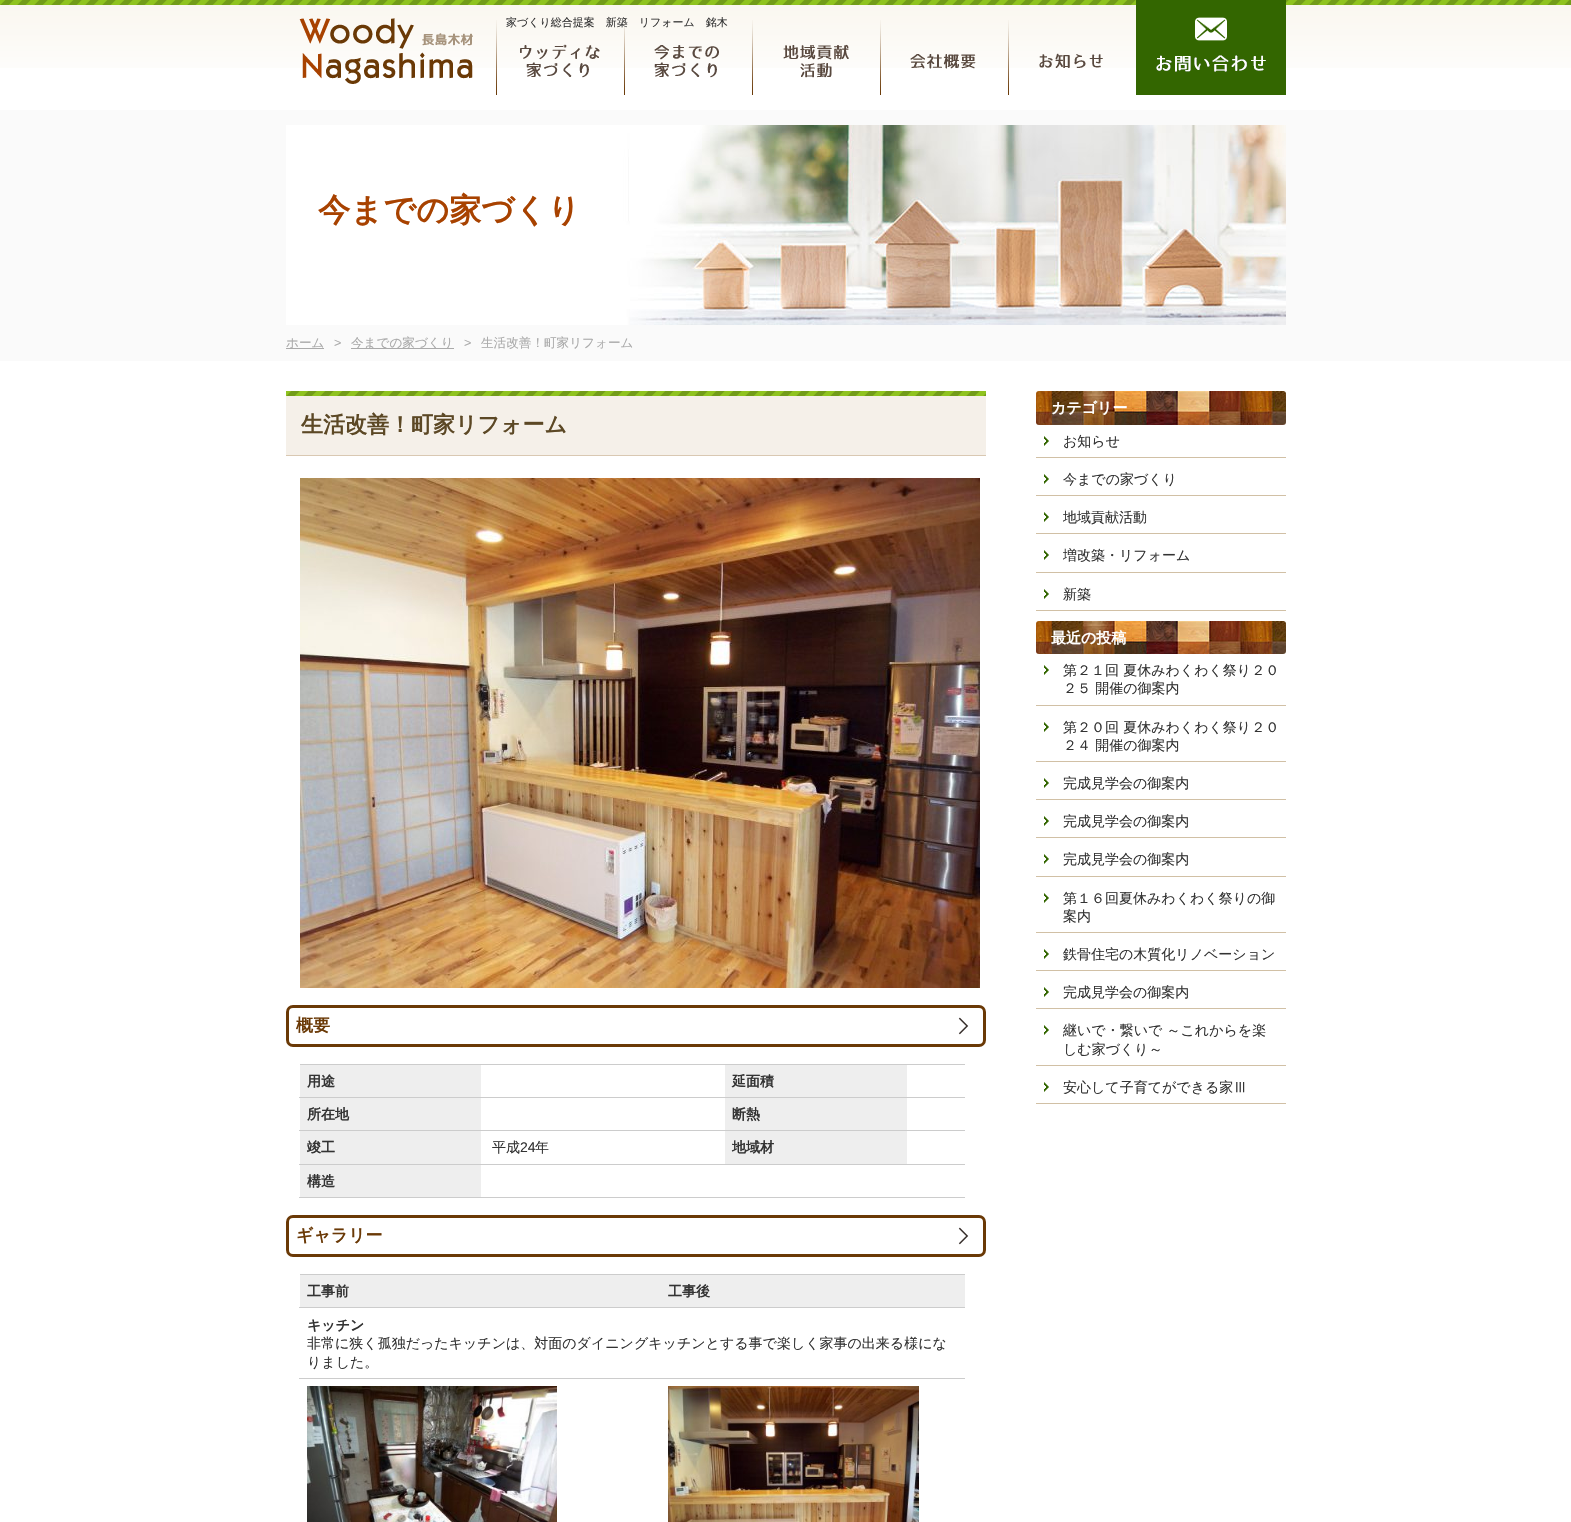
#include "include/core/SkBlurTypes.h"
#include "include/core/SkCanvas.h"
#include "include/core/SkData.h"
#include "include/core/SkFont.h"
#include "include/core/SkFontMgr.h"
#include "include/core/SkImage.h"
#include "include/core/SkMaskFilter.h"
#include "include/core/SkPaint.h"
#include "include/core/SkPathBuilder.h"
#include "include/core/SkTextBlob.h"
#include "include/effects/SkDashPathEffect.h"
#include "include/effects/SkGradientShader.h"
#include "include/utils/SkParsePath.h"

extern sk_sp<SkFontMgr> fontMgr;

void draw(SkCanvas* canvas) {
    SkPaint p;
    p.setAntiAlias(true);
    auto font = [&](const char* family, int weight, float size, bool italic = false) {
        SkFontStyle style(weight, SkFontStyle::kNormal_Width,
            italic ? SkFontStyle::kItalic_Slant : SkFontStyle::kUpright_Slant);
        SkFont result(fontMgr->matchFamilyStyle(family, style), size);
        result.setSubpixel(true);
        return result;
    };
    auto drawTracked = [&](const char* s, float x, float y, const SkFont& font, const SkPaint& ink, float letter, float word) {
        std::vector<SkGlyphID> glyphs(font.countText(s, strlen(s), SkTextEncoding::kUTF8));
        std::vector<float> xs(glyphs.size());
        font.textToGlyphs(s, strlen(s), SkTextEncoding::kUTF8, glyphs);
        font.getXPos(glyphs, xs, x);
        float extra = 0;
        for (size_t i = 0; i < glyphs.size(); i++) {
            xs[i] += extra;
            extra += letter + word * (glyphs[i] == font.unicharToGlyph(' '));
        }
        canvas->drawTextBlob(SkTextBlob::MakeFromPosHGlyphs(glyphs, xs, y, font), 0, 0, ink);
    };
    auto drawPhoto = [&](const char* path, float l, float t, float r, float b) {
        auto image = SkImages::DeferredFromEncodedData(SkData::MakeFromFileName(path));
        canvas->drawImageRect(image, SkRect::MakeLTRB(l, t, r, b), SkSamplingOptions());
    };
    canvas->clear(0xFFFFFFFF);
    drawPhoto("media/1.png", 0, 0, 1571, 68);
    drawPhoto("media/2.png", 496, 20, 600, 95);
    drawPhoto("media/3.png", 624, 20, 719, 95);
    drawPhoto("media/4.png", 752, 20, 849, 95);
    drawPhoto("media/5.png", 880, 20, 976, 95);
    drawPhoto("media/6.png", 1008, 20, 1103, 95);
    drawPhoto("media/7.png", 1136, 0, 1286, 95);
    drawPhoto("media/8.png", 299, 18, 473, 84);
    auto font1 = font("WenQuanYi Zen Hei", 500, 11);
    p.setColor(0xFF333333);
    canvas->drawString("家づくり総合提案　新築　リフォーム　銘木", 506, 26, font1, p);
    p.setColor(0xFFFAFAFA);
    canvas->drawRect(SkRect::MakeLTRB(0, 110, 1571, 361), p);
    drawPhoto("media/9.png", 286, 125, 1286, 325);
    auto font2 = font("WenQuanYi Zen Hei", 700, 32.25f);
    p.setColor(0xFFA84200);
    canvas->drawString("今までの家づくり", 318, 221, font2, p);
    p.setColor(0xFFAAAAAA);
    canvas->drawRect(SkRect::MakeLTRB(286, 348, 324, 349), p);
    auto font3 = font("WenQuanYi Zen Hei", 500, 12.6f);
    canvas->drawString("ホーム", 286, 347, font3, p);
    auto font4 = font("Liberation Sans", 400, 12.6f);
    drawTracked(">", 334, 347, font4, p, 10, 0);
    canvas->drawRect(SkRect::MakeLTRB(351, 348, 454, 349), p);
    canvas->drawString("今までの家づくり", 351, 347, font3, p);
    drawTracked(">", 464, 347, font4, p, 10, 0);
    canvas->drawString("生活改善！町家リフォーム", 481, 347, font3, p);
    p.setColor(0xFFF5F0E9);
    canvas->drawRect(SkRect::MakeLTRB(286, 396, 986, 455), p);
    drawPhoto("media/10.png", 286, 391, 986, 396);
    p.setColor(0xFFD9C8B2);
    canvas->drawRect(SkRect::MakeLTRB(286, 455, 986, 456), p);
    auto font5 = font("WenQuanYi Zen Hei", 700, 22);
    p.setColor(0xFF5C4825);
    canvas->drawString("生活改善！町家リフォーム", 301, 432, font5, p);
    drawPhoto("media/11.png", 300, 478, 980, 988);
    drawPhoto("media/12.png", 958, 1017, 969, 1035);
    p.setStyle(SkPaint::kStroke_Style);
    p.setStrokeWidth(3);
    p.setColor(0xFF6A3906);
    canvas->drawRoundRect(SkRect::MakeLTRB(287.5f, 1006.5f, 984.5f, 1045.5f), 5.5f, 5.5f, p);
    auto font6 = font("WenQuanYi Zen Hei", 700, 17);
    p.setStyle(SkPaint::kFill_Style);
    canvas->drawString("概要", 296, 1031, font6, p);
    p.setColor(0xFFCCCCCC);
    canvas->drawRect(SkRect::MakeLTRB(300, 1064, 965, 1065), p);
    p.setColor(0xFFEEEEEE);
    canvas->drawRect(SkRect::MakeLTRB(300, 1065, 481, 1097), p);
    auto font7 = font("WenQuanYi Zen Hei", 700, 14);
    p.setColor(0xFF333333);
    canvas->drawString("用途", 307, 1086, font7, p);
    p.setColor(0xFFEEEEEE);
    canvas->drawRect(SkRect::MakeLTRB(725, 1065, 907, 1097), p);
    p.setColor(0xFF333333);
    canvas->drawString("延面積", 732, 1086, font7, p);
    p.setColor(0xFFCCCCCC);
    canvas->drawRect(SkRect::MakeLTRB(299, 1097, 965, 1098), p);
    p.setColor(0xFFEEEEEE);
    canvas->drawRect(SkRect::MakeLTRB(300, 1098, 481, 1130), p);
    p.setColor(0xFF333333);
    canvas->drawString("所在地", 307, 1119, font7, p);
    p.setColor(0xFFEEEEEE);
    canvas->drawRect(SkRect::MakeLTRB(725, 1098, 907, 1130), p);
    p.setColor(0xFF333333);
    canvas->drawString("断熱", 732, 1119, font7, p);
    p.setColor(0xFFCCCCCC);
    canvas->drawRect(SkRect::MakeLTRB(299, 1130, 965, 1131), p);
    p.setColor(0xFFEEEEEE);
    canvas->drawRect(SkRect::MakeLTRB(300, 1131, 481, 1164), p);
    p.setColor(0xFF333333);
    canvas->drawString("竣工", 307, 1152, font7, p);
    auto font8 = font("WenQuanYi Zen Hei", 500, 14);
    canvas->drawString("平成", 492, 1152, font8, p);
    auto font9 = font("Liberation Sans", 400, 14);
    canvas->drawString("24", 520, 1152, font9, p);
    canvas->drawString("年", 535, 1152, font8, p);
    p.setColor(0xFFEEEEEE);
    canvas->drawRect(SkRect::MakeLTRB(725, 1131, 907, 1164), p);
    p.setColor(0xFF333333);
    canvas->drawString("地域材", 732, 1152, font7, p);
    p.setColor(0xFFCCCCCC);
    canvas->drawRect(SkRect::MakeLTRB(299, 1164, 965, 1165), p);
    p.setColor(0xFFEEEEEE);
    canvas->drawRect(SkRect::MakeLTRB(300, 1165, 481, 1197), p);
    p.setColor(0xFF333333);
    canvas->drawString("構造", 307, 1186, font7, p);
    p.setColor(0xFFCCCCCC);
    canvas->drawRect(SkRect::MakeLTRB(299, 1197, 965, 1198), p);
    drawPhoto("media/12.png", 958, 1227, 969, 1245);
    p.setStyle(SkPaint::kStroke_Style);
    p.setColor(0xFF6A3906);
    canvas->drawRoundRect(SkRect::MakeLTRB(287.5f, 1216.5f, 984.5f, 1255.5f), 5.5f, 5.5f, p);
    p.setStyle(SkPaint::kFill_Style);
    canvas->drawString("ギャラリー", 296, 1241, font6, p);
    p.setColor(0xFFCCCCCC);
    canvas->drawRect(SkRect::MakeLTRB(300, 1274, 965, 1275), p);
    p.setColor(0xFFEEEEEE);
    canvas->drawRect(SkRect::MakeLTRB(300, 1275, 965, 1307), p);
    p.setColor(0xFF333333);
    canvas->drawString("工事前", 307, 1296, font7, p);
    p.setColor(0xFFCCCCCC);
    canvas->drawRect(SkRect::MakeLTRB(299, 1307, 965, 1308), p);
    p.setColor(0xFF333333);
    canvas->drawString("工事後", 668, 1296, font7, p);
    p.setColor(0xFFCCCCCC);
    canvas->drawRect(SkRect::MakeLTRB(299, 1378, 965, 1379), p);
    p.setColor(0xFF333333);
    canvas->drawString("キッチン", 307, 1330, font7, p);
    canvas->drawString("非常に狭く孤独だったキッチンは、対面のダイニングキッチンとする事で楽しく家事の出来る様にな", 307, 1348, font8, p);
    canvas->drawString("りました。", 307, 1367, font8, p);
    drawPhoto("media/13.png", 307, 1386, 557, 1522);
    drawPhoto("media/14.png", 668, 1386, 919, 1522);
    drawPhoto("media/15.png", 1036, 391, 1286, 425);
    auto font10 = font("WenQuanYi Zen Hei", 700, 15);
    p.setColor(0xFFFFFFFF);
    canvas->drawString("カテゴリー", 1051, 413, font10, p);
    drawPhoto("media/16.png", 1044, 436, 1049, 446);
    p.setColor(0xFFD1C0A5);
    canvas->drawRect(SkRect::MakeLTRB(1036, 457, 1286, 458), p);
    p.setColor(0xFF333333);
    canvas->drawString("お知らせ", 1063, 446, font8, p);
    drawPhoto("media/16.png", 1044, 474, 1049, 484);
    p.setColor(0xFFD1C0A5);
    canvas->drawRect(SkRect::MakeLTRB(1036, 495, 1286, 496), p);
    p.setColor(0xFF333333);
    canvas->drawString("今までの家づくり", 1063, 484, font8, p);
    drawPhoto("media/16.png", 1044, 512, 1049, 522);
    p.setColor(0xFFD1C0A5);
    canvas->drawRect(SkRect::MakeLTRB(1036, 533, 1286, 534), p);
    p.setColor(0xFF333333);
    canvas->drawString("地域貢献活動", 1063, 522, font8, p);
    drawPhoto("media/16.png", 1044, 550, 1049, 560);
    p.setColor(0xFFD1C0A5);
    canvas->drawRect(SkRect::MakeLTRB(1036, 572, 1286, 573), p);
    p.setColor(0xFF333333);
    canvas->drawString("増改築・リフォーム", 1063, 560, font8, p);
    drawPhoto("media/16.png", 1044, 589, 1049, 599);
    p.setColor(0xFFD1C0A5);
    canvas->drawRect(SkRect::MakeLTRB(1036, 610, 1286, 611), p);
    p.setColor(0xFF333333);
    canvas->drawString("新築", 1063, 599, font8, p);
    drawPhoto("media/17.png", 1036, 621, 1286, 654);
    p.setColor(0xFFFFFFFF);
    canvas->drawString("最近の投稿", 1051, 643, font10, p);
    drawPhoto("media/16.png", 1044, 665, 1049, 675);
    p.setColor(0xFFD1C0A5);
    canvas->drawRect(SkRect::MakeLTRB(1036, 705, 1286, 706), p);
    p.setColor(0xFF333333);
    canvas->drawString("第２１回 夏休みわくわく祭り２０", 1063, 675, font8, p);
    canvas->drawString("２５ 開催の御案内", 1063, 693, font8, p);
    drawPhoto("media/16.png", 1044, 722, 1049, 732);
    p.setColor(0xFFD1C0A5);
    canvas->drawRect(SkRect::MakeLTRB(1036, 761, 1286, 762), p);
    p.setColor(0xFF333333);
    canvas->drawString("第２０回 夏休みわくわく祭り２０", 1063, 732, font8, p);
    canvas->drawString("２４ 開催の御案内", 1063, 750, font8, p);
    drawPhoto("media/16.png", 1044, 778, 1049, 788);
    p.setColor(0xFFD1C0A5);
    canvas->drawRect(SkRect::MakeLTRB(1036, 799, 1286, 800), p);
    p.setColor(0xFF333333);
    canvas->drawString("完成見学会の御案内", 1063, 788, font8, p);
    drawPhoto("media/16.png", 1044, 816, 1049, 826);
    p.setColor(0xFFD1C0A5);
    canvas->drawRect(SkRect::MakeLTRB(1036, 837, 1286, 838), p);
    p.setColor(0xFF333333);
    canvas->drawString("完成見学会の御案内", 1063, 826, font8, p);
    drawPhoto("media/16.png", 1044, 854, 1049, 864);
    p.setColor(0xFFD1C0A5);
    canvas->drawRect(SkRect::MakeLTRB(1036, 876, 1286, 877), p);
    p.setColor(0xFF333333);
    canvas->drawString("完成見学会の御案内", 1063, 864, font8, p);
    drawPhoto("media/16.png", 1044, 893, 1049, 903);
    p.setColor(0xFFD1C0A5);
    canvas->drawRect(SkRect::MakeLTRB(1036, 932, 1286, 933), p);
    p.setColor(0xFF333333);
    canvas->drawString("第１６回夏休みわくわく祭りの御", 1063, 903, font8, p);
    canvas->drawString("案内", 1063, 921, font8, p);
    drawPhoto("media/16.png", 1044, 949, 1049, 959);
    p.setColor(0xFFD1C0A5);
    canvas->drawRect(SkRect::MakeLTRB(1036, 970, 1286, 971), p);
    p.setColor(0xFF333333);
    canvas->drawString("鉄骨住宅の木質化リノベーション", 1063, 959, font8, p);
    drawPhoto("media/16.png", 1044, 987, 1049, 997);
    p.setColor(0xFFD1C0A5);
    canvas->drawRect(SkRect::MakeLTRB(1036, 1008, 1286, 1009), p);
    p.setColor(0xFF333333);
    canvas->drawString("完成見学会の御案内", 1063, 997, font8, p);
    drawPhoto("media/16.png", 1044, 1025, 1049, 1035);
    p.setColor(0xFFD1C0A5);
    canvas->drawRect(SkRect::MakeLTRB(1036, 1065, 1286, 1066), p);
    p.setColor(0xFF333333);
    canvas->drawString("継いで・繋いで ～これからを楽", 1063, 1035, font8, p);
    canvas->drawString("しむ家づくり～", 1063, 1054, font8, p);
    drawPhoto("media/16.png", 1044, 1082, 1049, 1092);
    p.setColor(0xFFD1C0A5);
    canvas->drawRect(SkRect::MakeLTRB(1036, 1103, 1286, 1104), p);
    p.setColor(0xFF333333);
    canvas->drawString("安心して子育てができる家Ⅲ", 1063, 1092, font8, p);
}
